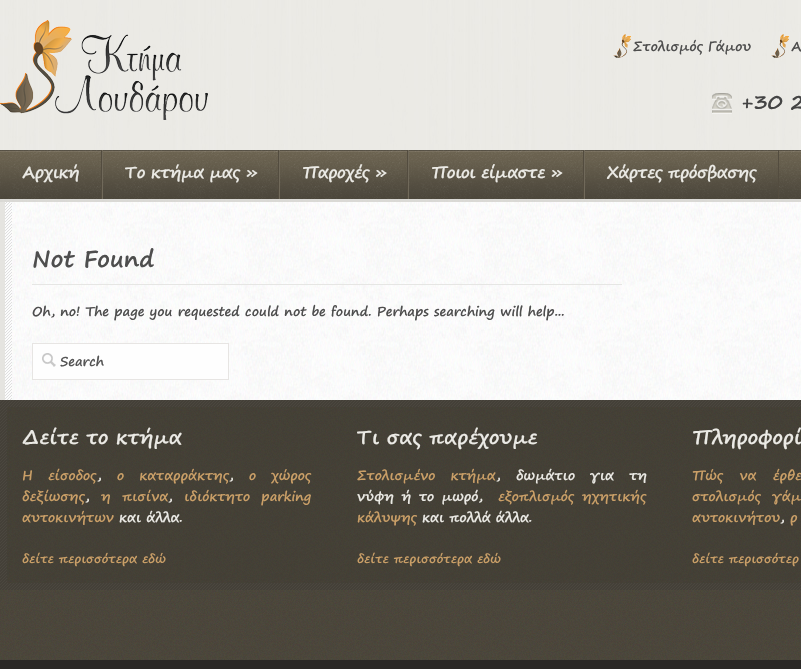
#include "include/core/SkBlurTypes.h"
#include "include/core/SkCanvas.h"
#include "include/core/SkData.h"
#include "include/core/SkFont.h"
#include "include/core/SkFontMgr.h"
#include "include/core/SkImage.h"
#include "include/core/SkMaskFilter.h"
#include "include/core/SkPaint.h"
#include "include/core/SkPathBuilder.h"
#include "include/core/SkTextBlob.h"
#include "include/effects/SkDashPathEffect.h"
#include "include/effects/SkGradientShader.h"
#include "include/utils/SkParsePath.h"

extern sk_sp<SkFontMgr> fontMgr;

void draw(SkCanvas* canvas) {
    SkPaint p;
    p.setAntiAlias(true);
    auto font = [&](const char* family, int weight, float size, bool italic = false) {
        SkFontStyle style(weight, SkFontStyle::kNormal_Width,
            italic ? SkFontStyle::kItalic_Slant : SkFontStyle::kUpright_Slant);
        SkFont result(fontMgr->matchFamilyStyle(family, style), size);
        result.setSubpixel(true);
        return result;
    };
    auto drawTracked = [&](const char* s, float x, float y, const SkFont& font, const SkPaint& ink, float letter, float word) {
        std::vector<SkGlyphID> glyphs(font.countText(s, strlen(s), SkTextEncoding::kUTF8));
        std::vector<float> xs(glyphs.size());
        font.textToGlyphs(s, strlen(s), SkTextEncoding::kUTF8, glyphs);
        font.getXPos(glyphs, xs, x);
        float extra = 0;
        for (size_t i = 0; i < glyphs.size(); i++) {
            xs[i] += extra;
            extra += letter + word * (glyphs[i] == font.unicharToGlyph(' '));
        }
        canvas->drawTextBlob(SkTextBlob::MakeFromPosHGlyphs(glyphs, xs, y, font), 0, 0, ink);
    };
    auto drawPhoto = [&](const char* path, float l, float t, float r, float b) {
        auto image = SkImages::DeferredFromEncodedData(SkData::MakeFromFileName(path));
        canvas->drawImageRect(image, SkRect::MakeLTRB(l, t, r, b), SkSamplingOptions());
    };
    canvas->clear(0xFFFFFFFF);
    drawPhoto("media/1.png", 0, 0, 801, 202);
    drawPhoto("media/2.png", 613, 34, 631, 58);
    auto font1 = font("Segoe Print", 700, 13);
    p.setColor(0xFF4E4E4E);
    canvas->drawString("Στολισμός Γάμου", 633, 51, font1, p);
    drawPhoto("media/3.png", 771, 34, 789, 58);
    canvas->drawString("Α", 791, 51, font1, p);
    drawPhoto("media/4.png", 0, 20, 208, 120);
    drawPhoto("media/5.png", 712, 93, 732, 114);
    auto font2 = font("Segoe Print", 700, 20);
    p.setColor(0xFF444444);
    canvas->drawString("+30 2", 742, 109, font2, p);
    drawPhoto("media/6.png", 0, 150, 801, 202);
    p.setColor(0xFF534C3F);
    canvas->drawRect(SkRect::MakeLTRB(101, 150, 102, 199), p);
    auto font3 = font("Segoe Print", 700, 16);
    p.setColor(0xFFEBEAE5);
    drawTracked("Αρχική", 22, 178, font3, p, -0.5f, 0);
    drawPhoto("media/7.png", 103, 150, 278, 199);
    p.setColor(0xFF534C3F);
    canvas->drawRect(SkRect::MakeLTRB(278, 150, 279, 199), p);
    p.setColor(0xFF70695A);
    canvas->drawRect(SkRect::MakeLTRB(102, 150, 103, 199), p);
    p.setColor(0xFFEBEAE5);
    drawTracked("Το κτήμα μας »", 125, 178, font3, p, -0.5f, 0);
    drawPhoto("media/8.png", 280, 150, 407, 199);
    p.setColor(0xFF534C3F);
    canvas->drawRect(SkRect::MakeLTRB(407, 150, 408, 199), p);
    p.setColor(0xFF70695A);
    canvas->drawRect(SkRect::MakeLTRB(279, 150, 280, 199), p);
    p.setColor(0xFFEBEAE5);
    drawTracked("Παροχές »", 302, 178, font3, p, -0.5f, 0);
    drawPhoto("media/9.png", 409, 150, 583, 199);
    p.setColor(0xFF534C3F);
    canvas->drawRect(SkRect::MakeLTRB(583, 150, 584, 199), p);
    p.setColor(0xFF70695A);
    canvas->drawRect(SkRect::MakeLTRB(408, 150, 409, 199), p);
    p.setColor(0xFFEBEAE5);
    drawTracked("Ποιοι είμαστε »", 431, 178, font3, p, -0.5f, 0);
    drawPhoto("media/10.png", 585, 150, 778, 199);
    p.setColor(0xFF534C3F);
    canvas->drawRect(SkRect::MakeLTRB(778, 150, 779, 199), p);
    p.setColor(0xFF70695A);
    canvas->drawRect(SkRect::MakeLTRB(584, 150, 585, 199), p);
    p.setColor(0xFFEBEAE5);
    drawTracked("Χάρτες πρόσβασης", 607, 178, font3, p, -0.5f, 0);
    p.setColor(0xFFFBFBFB);
    canvas->drawRect(SkRect::MakeLTRB(5, 202, 12, 400), p);
    drawPhoto("media/11.png", 5, 202, 12, 400);
    p.setColor(0xFFE5E4E0);
    canvas->drawRect(SkRect::MakeLTRB(0, 202, 5, 400), p);
    drawPhoto("media/12.png", 12, 202, 801, 400);
    p.setColor(0xFFE6E6E4);
    canvas->drawRect(SkRect::MakeLTRB(32, 284, 622, 285), p);
    auto font4 = font("Segoe Print", 700, 23);
    p.setColor(0xFF4E4E4E);
    canvas->drawString("Not Found", 32, 267, font4, p);
    canvas->drawString("Oh, no! The page you requested could not be found. Perhaps searching will help...", 32, 316, font1, p);
    p.setColor(0xFFFEFEFE);
    canvas->drawRect(SkRect::MakeLTRB(32.5f, 343.5f, 228.5f, 379.5f), p);
    p.setStyle(SkPaint::kStroke_Style);
    p.setStrokeWidth(1);
    p.setColor(0xFFE7E5E3);
    canvas->drawRect(SkRect::MakeLTRB(32.5f, 343.5f, 228.5f, 379.5f), p);
    drawPhoto("media/13.png", 42, 353, 56, 367);
    p.setStyle(SkPaint::kFill_Style);
    p.setColor(0xFF555555);
    canvas->drawString("Search", 60, 366, font1, p);
    drawPhoto("media/14.png", 0, 590, 801, 660);
    p.setColor(0xFF444038);
    canvas->drawRect(SkRect::MakeLTRB(0, 400, 801, 590), p);
    drawPhoto("media/15.png", 0, 400, 801, 590);
    drawPhoto("media/16.png", 7, 407, 801, 583);
    auto font5 = font("Segoe Print", 700, 19);
    p.setColor(0xFFEBEAE5);
    canvas->drawString("Δείτε το κτήμα", 22, 444, font5, p);
    p.setColor(0xFFCA9F67);
    drawTracked("Η είσοδος", 22, 480, font1, p, 0, 10);
    p.setColor(0xFFEBEAE5);
    canvas->drawString(",", 97, 480, font1, p);
    p.setColor(0xFFCA9F67);
    drawTracked("ο καταρράκτης", 117, 480, font1, p, 0, 10);
    p.setColor(0xFFEBEAE5);
    canvas->drawString(",", 229, 480, font1, p);
    p.setColor(0xFFCA9F67);
    drawTracked("ο χώρος", 249, 480, font1, p, 0, 10);
    canvas->drawString("δεξίωσης", 22, 501, font1, p);
    p.setColor(0xFFEBEAE5);
    canvas->drawString(",", 85, 501, font1, p);
    p.setColor(0xFFCA9F67);
    drawTracked("η πισίνα", 101, 501, font1, p, 0, 6);
    p.setColor(0xFFEBEAE5);
    canvas->drawString(",", 168, 501, font1, p);
    p.setColor(0xFFCA9F67);
    drawTracked("ιδιόκτητο parking", 184, 501, font1, p, 0, 6);
    canvas->drawString("αυτοκινήτων", 22, 522, font1, p);
    p.setColor(0xFFEBEAE5);
    canvas->drawString("και άλλα.", 119, 522, font1, p);
    auto font6 = font("Segoe Print", 700, 12);
    p.setColor(0xFFCA9F67);
    canvas->drawString("δείτε περισσότερα εδώ", 22, 563, font6, p);
    p.setColor(0xFFEBEAE5);
    canvas->drawString("Τι σας παρέχουμε", 357, 444, font5, p);
    p.setColor(0xFFCA9F67);
    drawTracked("Στολισμένο κτήμα", 357, 480, font1, p, 0, 10);
    p.setColor(0xFFEBEAE5);
    canvas->drawString(",", 496, 480, font1, p);
    drawTracked("δωμάτιο για τη", 516, 480, font1, p, 0, 10);
    drawTracked("νύφη ή το μωρό,", 357, 501, font1, p, 0, 2.5f);
    p.setColor(0xFFCA9F67);
    drawTracked("εξοπλισμός ηχητικής", 498, 501, font1, p, 0, 2.5f);
    canvas->drawString("κάλυψης", 357, 522, font1, p);
    p.setColor(0xFFEBEAE5);
    canvas->drawString("και πολλά άλλα.", 422, 522, font1, p);
    p.setColor(0xFFCA9F67);
    canvas->drawString("δείτε περισσότερα εδώ", 357, 563, font6, p);
    p.setColor(0xFFEBEAE5);
    canvas->drawString("Πληροφορί", 692, 444, font5, p);
    p.setColor(0xFFCA9F67);
    drawTracked("Πώς να έρθε", 692, 480, font1, p, 0, 11);
    drawTracked("στολισμός γάμ", 692, 501, font1, p, 0, 6);
    canvas->drawString("αυτοκινήτου", 692, 522, font1, p);
    p.setColor(0xFFEBEAE5);
    canvas->drawString(",", 780, 522, font1, p);
    p.setColor(0xFFCA9F67);
    canvas->drawString("ρ", 790, 522, font1, p);
    canvas->drawString("δείτε περισσότερ", 692, 563, font6, p);
    p.setColor(0xFF2A2825);
    canvas->drawRect(SkRect::MakeLTRB(0, 660, 801, 669), p);
}
